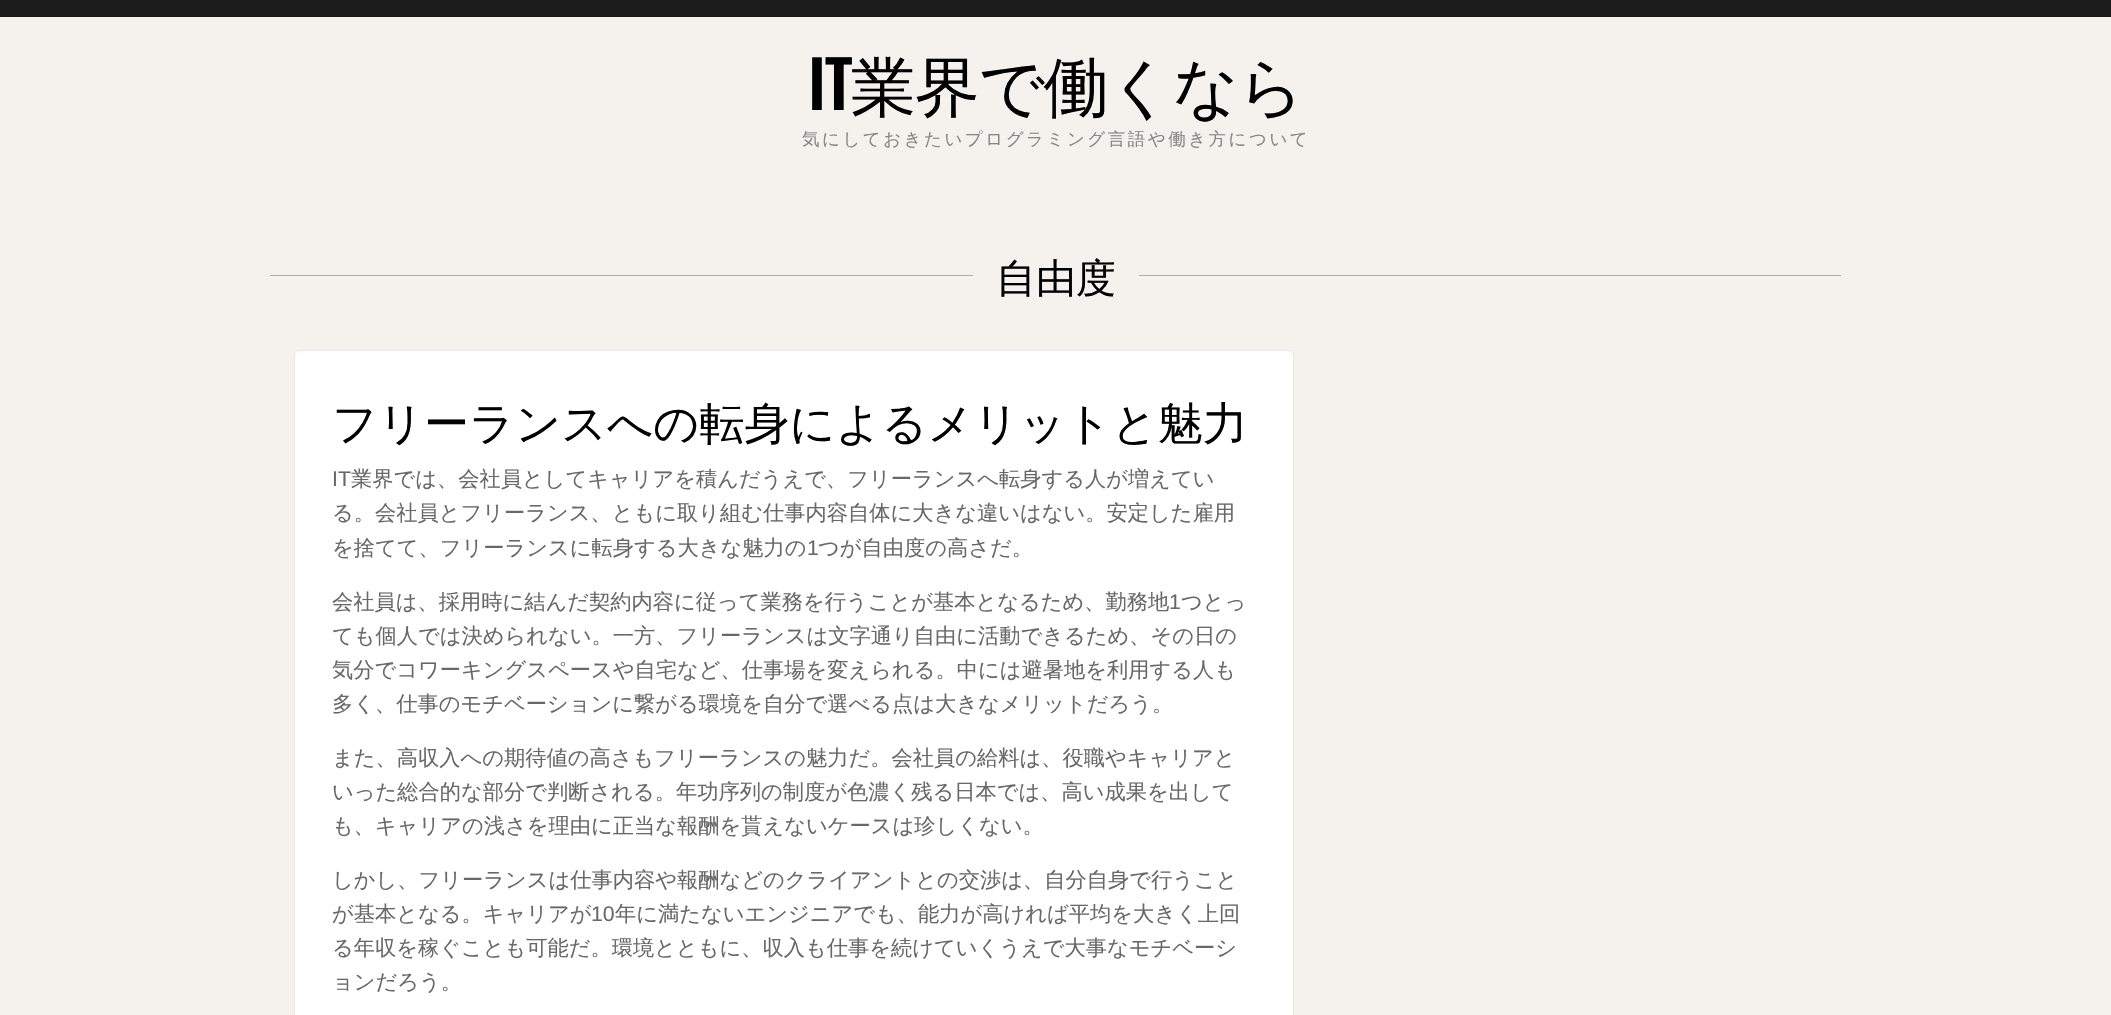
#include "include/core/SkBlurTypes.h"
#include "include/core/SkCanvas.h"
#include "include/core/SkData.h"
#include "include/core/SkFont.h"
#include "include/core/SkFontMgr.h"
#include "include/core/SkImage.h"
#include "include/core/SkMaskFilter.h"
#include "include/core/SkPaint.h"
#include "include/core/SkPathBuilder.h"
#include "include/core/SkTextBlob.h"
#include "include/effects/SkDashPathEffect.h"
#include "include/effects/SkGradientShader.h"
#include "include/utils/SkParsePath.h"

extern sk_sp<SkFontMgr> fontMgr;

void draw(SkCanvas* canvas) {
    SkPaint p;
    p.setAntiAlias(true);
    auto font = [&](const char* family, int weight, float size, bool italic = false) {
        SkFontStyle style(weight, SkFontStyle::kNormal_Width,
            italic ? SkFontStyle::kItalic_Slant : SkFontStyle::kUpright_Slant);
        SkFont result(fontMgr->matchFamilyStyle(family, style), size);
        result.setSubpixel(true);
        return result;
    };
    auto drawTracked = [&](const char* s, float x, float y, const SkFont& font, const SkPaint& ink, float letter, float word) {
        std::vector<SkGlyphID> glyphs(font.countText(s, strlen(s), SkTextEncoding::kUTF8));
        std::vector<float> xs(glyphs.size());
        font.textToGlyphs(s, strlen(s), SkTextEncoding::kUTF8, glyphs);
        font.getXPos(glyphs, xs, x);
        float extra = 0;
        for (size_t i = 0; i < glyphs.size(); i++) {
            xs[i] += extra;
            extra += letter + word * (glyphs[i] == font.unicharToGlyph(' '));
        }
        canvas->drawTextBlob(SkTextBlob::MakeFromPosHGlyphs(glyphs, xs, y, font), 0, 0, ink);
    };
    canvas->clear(0xFF1B1B1B);
    p.setColor(0xFFF5F2ED);
    canvas->drawRect(SkRect::MakeLTRB(0, 17, 2111, 1015), p);
    auto font1 = font("Oswald", 500, 65);
    p.setColor(0xFF000000);
    drawTracked("IT", 808, 110, font1, p, -1.25f, 0);
    auto font2 = font("WenQuanYi Zen Hei", 500, 65);
    drawTracked("業界で働くなら", 851, 110, font2, p, -1.25f, 0);
    auto font3 = font("WenQuanYi Zen Hei", 500, 17.5f);
    p.setColor(0xFF868686);
    drawTracked("気にしておきたいプログラミング言語や働き方について", 802, 145, font3, p, 2.5f, 0);
    p.setColor(0xFFAFAFAF);
    canvas->drawRect(SkRect::MakeLTRB(270, 275, 973, 276), p);
    auto font4 = font("WenQuanYi Zen Hei", 500, 40);
    p.setColor(0xFF000000);
    canvas->drawString("自由度", 996, 292, font4, p);
    p.setColor(0xFFAFAFAF);
    canvas->drawRect(SkRect::MakeLTRB(1139, 275, 1841, 276), p);
    p.setColor(0xFFFFFFFF);
    canvas->drawRoundRect(SkRect::MakeLTRB(294.5f, 350.5f, 1293.5f, 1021.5f), 5.5f, 5.5f, p);
    p.setStyle(SkPaint::kStroke_Style);
    p.setStrokeWidth(1);
    p.setColor(0xFFE8E8E8);
    canvas->drawRoundRect(SkRect::MakeLTRB(294.5f, 350.5f, 1293.5f, 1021.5f), 5.5f, 5.5f, p);
    auto font5 = font("WenQuanYi Zen Hei", 500, 45);
    p.setStyle(SkPaint::kFill_Style);
    p.setColor(0xFF000000);
    canvas->drawString("フリーランスへの転身によるメリットと魅力", 332, 439, font5, p);
    auto font6 = font("Liberation Sans", 400, 21.25f);
    p.setColor(0xFF686868);
    canvas->drawString("IT", 332, 486, font6, p);
    auto font7 = font("WenQuanYi Zen Hei", 500, 21.25f);
    {
        const struct { const char* s; float x, y; } items[] = {
            {"業界では、会社員としてキャリアを積んだうえで、フリーランスへ転身する人が増えてい", 351, 486},
            {"る。会社員とフリーランス、ともに取り組む仕事内容自体に大きな違いはない。安定した雇用", 332, 520},
            {"を捨てて、フリーランスに転身する大きな魅力の", 332, 555},
        };
        for (auto [s, x, y] : items) {
            canvas->drawString(s, x, y, font7, p);
        }
    }
    canvas->drawString("1", 807, 555, font6, p);
    canvas->drawString("つが自由度の高さだ。", 818, 555, font7, p);
    canvas->drawString("会社員は、採用時に結んだ契約内容に従って業務を行うことが基本となるため、勤務地", 332, 609, font7, p);
    canvas->drawString("1", 1169, 609, font6, p);
    {
        const struct { const char* s; float x, y; } items[] = {
            {"つとっ", 1181, 609},
            {"ても個人では決められない。一方、フリーランスは文字通り自由に活動できるため、その日の", 332, 643},
            {"気分でコワーキングスペースや自宅など、仕事場を変えられる。中には避暑地を利用する人も", 332, 677},
            {"多く、仕事のモチベーションに繋がる環境を自分で選べる点は大きなメリットだろう。", 332, 711},
            {"また、高収入への期待値の高さもフリーランスの魅力だ。会社員の給料は、役職やキャリアと", 332, 765},
            {"いった総合的な部分で判断される。年功序列の制度が色濃く残る日本では、高い成果を出して", 332, 799},
            {"も、キャリアの浅さを理由に正当な報酬を貰えないケースは珍しくない。", 332, 833},
            {"しかし、フリーランスは仕事内容や報酬などのクライアントとの交渉は、自分自身で行うこと", 332, 887},
            {"が基本となる。キャリアが", 332, 921},
        };
        for (auto [s, x, y] : items) {
            canvas->drawString(s, x, y, font7, p);
        }
    }
    canvas->drawString("10", 591, 921, font6, p);
    {
        const struct { const char* s; float x, y; } items[] = {
            {"年に満たないエンジニアでも、能力が高ければ平均を大きく上回", 615, 921},
            {"る年収を稼ぐことも可能だ。環境とともに、収入も仕事を続けていくうえで大事なモチベーシ", 332, 955},
            {"ョンだろう。", 332, 989},
        };
        for (auto [s, x, y] : items) {
            canvas->drawString(s, x, y, font7, p);
        }
    }
}
